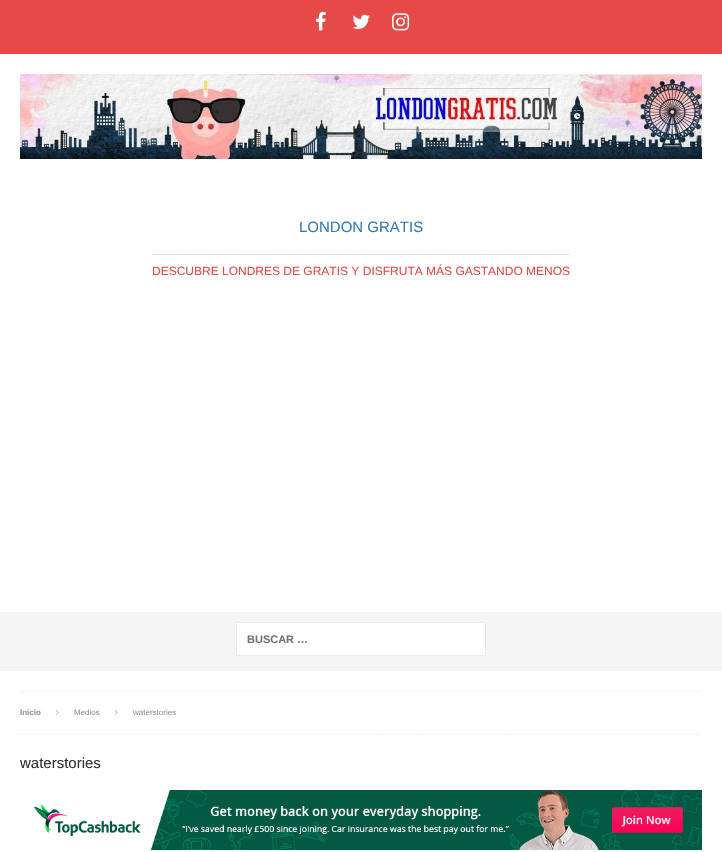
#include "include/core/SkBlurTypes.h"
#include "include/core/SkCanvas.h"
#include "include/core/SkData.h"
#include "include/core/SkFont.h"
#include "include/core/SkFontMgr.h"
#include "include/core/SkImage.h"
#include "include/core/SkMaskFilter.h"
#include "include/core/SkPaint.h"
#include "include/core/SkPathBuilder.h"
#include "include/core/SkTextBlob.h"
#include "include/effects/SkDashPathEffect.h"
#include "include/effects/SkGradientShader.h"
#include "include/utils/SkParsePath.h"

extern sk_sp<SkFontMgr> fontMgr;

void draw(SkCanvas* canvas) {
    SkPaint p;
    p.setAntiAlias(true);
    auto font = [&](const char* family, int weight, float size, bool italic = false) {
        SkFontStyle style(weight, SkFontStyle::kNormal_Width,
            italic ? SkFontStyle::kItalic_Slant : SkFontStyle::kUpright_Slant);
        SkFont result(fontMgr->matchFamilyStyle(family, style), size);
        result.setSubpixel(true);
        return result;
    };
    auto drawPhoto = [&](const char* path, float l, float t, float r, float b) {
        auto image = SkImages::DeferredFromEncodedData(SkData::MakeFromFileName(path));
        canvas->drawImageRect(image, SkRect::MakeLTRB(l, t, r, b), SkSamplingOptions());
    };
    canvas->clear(0xFFFFFFFF);
    p.setColor(0xFFE64946);
    canvas->drawRect(SkRect::MakeLTRB(0, 0, 722, 54), p);
    drawPhoto("media/1.png", 316, 11, 326, 31);
    drawPhoto("media/2.png", 352, 14, 370, 29);
    drawPhoto("media/3.png", 392, 13, 410, 31);
    drawPhoto("media/4.png", 20, 74, 702, 159);
    auto font1 = font("Liberation Sans", 400, 15);
    p.setColor(0xFF337AB7);
    canvas->drawString("LONDON GRATIS", 299, 232, font1, p);
    p.setColor(0xFFE5E5E5);
    canvas->drawRect(SkRect::MakeLTRB(152, 254, 570, 255), p);
    auto font2 = font("Liberation Sans", 400, 12);
    p.setColor(0xFFE64946);
    canvas->drawString("DESCUBRE LONDRES DE GRATIS Y DISFRUTA MÁS GASTANDO MENOS", 152, 275, font2, p);
    p.setColor(0xFFF5F5F5);
    canvas->drawRect(SkRect::MakeLTRB(0, 612, 722, 671), p);
    p.setColor(0xFFFFFFFF);
    canvas->drawRect(SkRect::MakeLTRB(236.5f, 622.5f, 485.5f, 655.5f), p);
    p.setStyle(SkPaint::kStroke_Style);
    p.setStrokeWidth(1);
    p.setColor(0xFFEBEBEB);
    canvas->drawRect(SkRect::MakeLTRB(236.5f, 622.5f, 485.5f, 655.5f), p);
    auto font3 = font("Liberation Sans", 700, 11);
    p.setStyle(SkPaint::kFill_Style);
    p.setColor(0xFF757575);
    canvas->drawString("BUSCAR …", 247, 643, font3, p);
    p.setStyle(SkPaint::kStroke_Style);
    p.setColor(0xFFEBEBEB);
    p.setPathEffect(SkDashPathEffect::Make({{1, 1}}, 0));
    canvas->drawPath(SkPathBuilder().moveTo(20, 691.5f).lineTo(702, 691.5f).detach(), p);
    p.setPathEffect(nullptr);
    p.setPathEffect(SkDashPathEffect::Make({{1, 1}}, 0));
    canvas->drawPath(SkPathBuilder().moveTo(20, 734.5f).lineTo(702, 734.5f).detach(), p);
    p.setPathEffect(nullptr);
    auto font4 = font("Liberation Sans", 700, 8);
    p.setStyle(SkPaint::kFill_Style);
    p.setColor(0xFF979797);
    canvas->drawString("Inicio", 20, 715, font4, p);
    drawPhoto("media/5.png", 56, 710, 59, 715);
    auto font5 = font("Liberation Sans", 400, 8);
    canvas->drawString("Medios", 74, 715, font5, p);
    drawPhoto("media/5.png", 115, 710, 118, 715);
    canvas->drawString("waterstories", 133, 715, font5, p);
    p.setColor(0xFF333333);
    canvas->drawString("waterstories", 20, 768, font1, p);
    drawPhoto("media/6.png", 34, 790, 702, 850);
}
